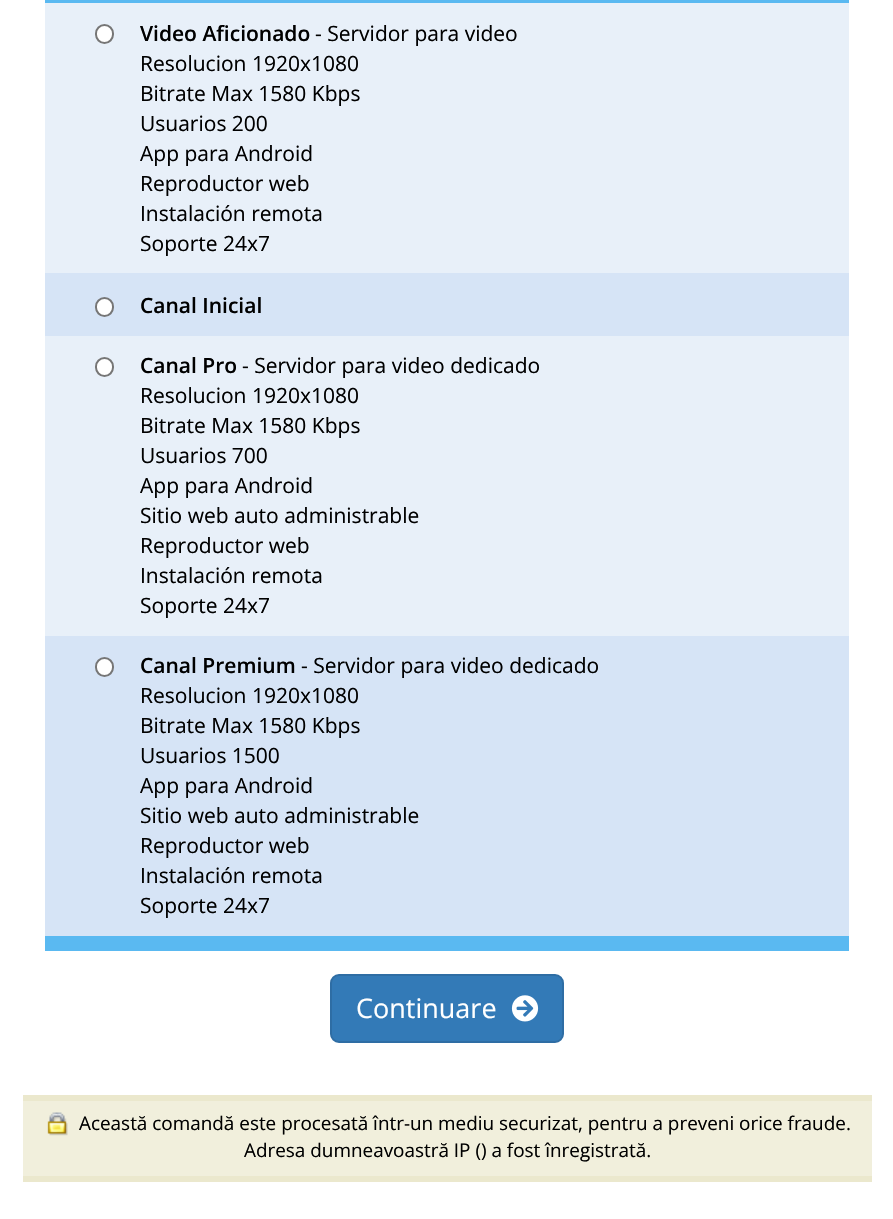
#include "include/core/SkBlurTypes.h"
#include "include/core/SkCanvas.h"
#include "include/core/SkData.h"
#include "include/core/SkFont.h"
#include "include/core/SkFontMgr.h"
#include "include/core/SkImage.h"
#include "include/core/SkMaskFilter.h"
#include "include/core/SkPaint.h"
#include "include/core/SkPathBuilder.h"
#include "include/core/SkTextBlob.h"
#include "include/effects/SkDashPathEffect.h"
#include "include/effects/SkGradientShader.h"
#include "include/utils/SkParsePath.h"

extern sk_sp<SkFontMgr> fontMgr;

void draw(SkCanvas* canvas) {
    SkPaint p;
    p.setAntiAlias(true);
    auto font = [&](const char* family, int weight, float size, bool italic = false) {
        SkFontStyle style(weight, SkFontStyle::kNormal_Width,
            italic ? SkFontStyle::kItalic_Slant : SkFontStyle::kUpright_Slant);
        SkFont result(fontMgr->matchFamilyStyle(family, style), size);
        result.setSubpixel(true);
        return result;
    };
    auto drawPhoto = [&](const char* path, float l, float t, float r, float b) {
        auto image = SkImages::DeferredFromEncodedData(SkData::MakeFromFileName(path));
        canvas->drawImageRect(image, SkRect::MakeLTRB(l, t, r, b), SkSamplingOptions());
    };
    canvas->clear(0xFFFFFFFF);
    {
        const struct { float l, t, r, b; SkColor color; } items[] = {
            {45, 0, 849, 3, 0xFF5AB9F1},
            {45, 936, 849, 951, 0xFF5AB9F1},
            {45, 3, 849, 273, 0xFFE8F0F9},
        };
        for (auto [l, t, r, b, color] : items) {
            p.setColor(color);
            canvas->drawRect(SkRect::MakeLTRB(l, t, r, b), p);
        }
    }
    p.setColor(0xFFFFFFFF);
    canvas->drawRoundRect(SkRect::MakeLTRB(96, 25, 113, 43), 8.5f, 8.5f, p);
    p.setStyle(SkPaint::kStroke_Style);
    p.setStrokeWidth(2);
    p.setColor(0xFF767676);
    canvas->drawRoundRect(SkRect::MakeLTRB(96, 25, 113, 43), 8.5f, 8.5f, p);
    auto font1 = font("Open Sans", 600, 21);
    p.setStyle(SkPaint::kFill_Style);
    p.setColor(0xFF000000);
    canvas->drawString("Video Aficionado", 140, 41, font1, p);
    auto font2 = font("Open Sans", 400, 21);
    {
        const struct { const char* s; float x, y; } items[] = {
            {"- Servidor para video", 315, 41},
            {"Resolucion 1920x1080", 140, 71},
            {"Bitrate Max 1580 Kbps", 140, 101},
            {"Usuarios 200", 140, 131},
            {"App para Android", 140, 161},
            {"Reproductor web", 140, 191},
            {"Instalación remota", 140, 221},
            {"Soporte 24x7", 140, 251},
        };
        for (auto [s, x, y] : items) {
            canvas->drawString(s, x, y, font2, p);
        }
    }
    p.setColor(0xFFD6E4F6);
    canvas->drawRect(SkRect::MakeLTRB(45, 273, 849, 336), p);
    p.setColor(0xFFFFFFFF);
    canvas->drawRoundRect(SkRect::MakeLTRB(96, 298, 113, 316), 8.5f, 8.5f, p);
    p.setStyle(SkPaint::kStroke_Style);
    p.setColor(0xFF767676);
    canvas->drawRoundRect(SkRect::MakeLTRB(96, 298, 113, 316), 8.5f, 8.5f, p);
    p.setStyle(SkPaint::kFill_Style);
    p.setColor(0xFF000000);
    canvas->drawString("Canal Inicial", 140, 313, font1, p);
    p.setColor(0xFFE8F0F9);
    canvas->drawRect(SkRect::MakeLTRB(45, 336, 849, 636), p);
    p.setColor(0xFFFFFFFF);
    canvas->drawRoundRect(SkRect::MakeLTRB(96, 358, 113, 376), 8.5f, 8.5f, p);
    p.setStyle(SkPaint::kStroke_Style);
    p.setColor(0xFF767676);
    canvas->drawRoundRect(SkRect::MakeLTRB(96, 358, 113, 376), 8.5f, 8.5f, p);
    p.setStyle(SkPaint::kFill_Style);
    p.setColor(0xFF000000);
    canvas->drawString("Canal Pro", 140, 373, font1, p);
    {
        const struct { const char* s; float x, y; } items[] = {
            {"- Servidor para video dedicado", 242, 373},
            {"Resolucion 1920x1080", 140, 403},
            {"Bitrate Max 1580 Kbps", 140, 433},
            {"Usuarios 700", 140, 463},
            {"App para Android", 140, 493},
            {"Sitio web auto administrable", 140, 523},
            {"Reproductor web", 140, 553},
            {"Instalación remota", 140, 583},
            {"Soporte 24x7", 140, 613},
        };
        for (auto [s, x, y] : items) {
            canvas->drawString(s, x, y, font2, p);
        }
    }
    p.setColor(0xFFD6E4F6);
    canvas->drawRect(SkRect::MakeLTRB(45, 636, 849, 936), p);
    p.setColor(0xFFFFFFFF);
    canvas->drawRoundRect(SkRect::MakeLTRB(96, 658, 113, 676), 8.5f, 8.5f, p);
    p.setStyle(SkPaint::kStroke_Style);
    p.setColor(0xFF767676);
    canvas->drawRoundRect(SkRect::MakeLTRB(96, 658, 113, 676), 8.5f, 8.5f, p);
    p.setStyle(SkPaint::kFill_Style);
    p.setColor(0xFF000000);
    canvas->drawString("Canal Premium", 140, 673, font1, p);
    {
        const struct { const char* s; float x, y; } items[] = {
            {"- Servidor para video dedicado", 301, 673},
            {"Resolucion 1920x1080", 140, 703},
            {"Bitrate Max 1580 Kbps", 140, 733},
            {"Usuarios 1500", 140, 763},
            {"App para Android", 140, 793},
            {"Sitio web auto administrable", 140, 823},
            {"Reproductor web", 140, 853},
            {"Instalación remota", 140, 883},
            {"Soporte 24x7", 140, 913},
        };
        for (auto [s, x, y] : items) {
            canvas->drawString(s, x, y, font2, p);
        }
    }
    p.setColor(0xFF337AB7);
    canvas->drawRoundRect(SkRect::MakeLTRB(331, 975, 563, 1042), 8, 8, p);
    p.setStyle(SkPaint::kStroke_Style);
    p.setColor(0xFF2E6DA4);
    canvas->drawRoundRect(SkRect::MakeLTRB(331, 975, 563, 1042), 8, 8, p);
    auto font3 = font("Open Sans", 400, 27);
    p.setStyle(SkPaint::kFill_Style);
    p.setColor(0xFFFFFFFF);
    canvas->drawString("Continuare", 356, 1018, font3, p);
    drawPhoto("media/1.png", 511, 995, 539, 1022);
    {
        const struct { float l, t, r, b; SkColor color; } items[] = {
            {23, 1101, 872, 1176, 0xFFF1EFDC},
            {23, 1095, 872, 1101, 0xFFEBE8CD},
            {23, 1176, 872, 1182, 0xFFEBE8CD},
        };
        for (auto [l, t, r, b, color] : items) {
            p.setColor(color);
            canvas->drawRect(SkRect::MakeLTRB(l, t, r, b), p);
        }
    }
    drawPhoto("media/2.png", 47, 1112, 68, 1136);
    auto font4 = font("Open Sans", 400, 18.9f);
    p.setColor(0xFF000000);
    canvas->drawString("Această comandă este procesată într-un mediu securizat, pentru a preveni orice fraude.", 79, 1130, font4, p);
    canvas->drawString("Adresa dumneavoastră IP () a fost înregistrată.", 244, 1157, font4, p);
}
